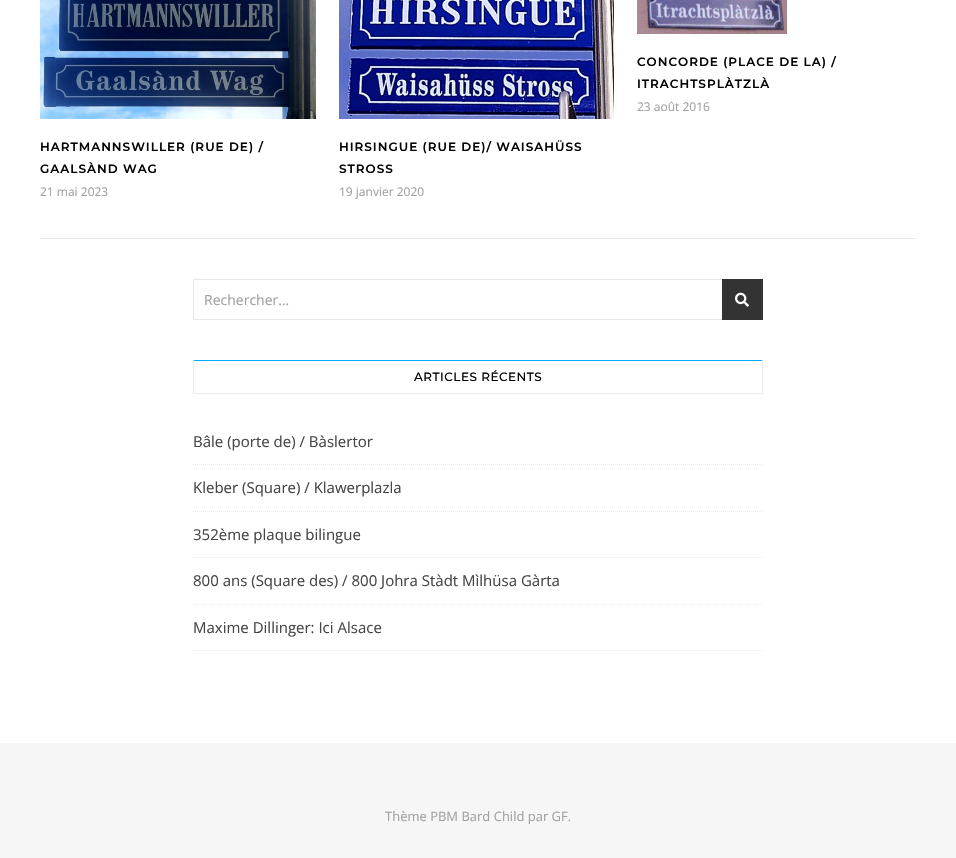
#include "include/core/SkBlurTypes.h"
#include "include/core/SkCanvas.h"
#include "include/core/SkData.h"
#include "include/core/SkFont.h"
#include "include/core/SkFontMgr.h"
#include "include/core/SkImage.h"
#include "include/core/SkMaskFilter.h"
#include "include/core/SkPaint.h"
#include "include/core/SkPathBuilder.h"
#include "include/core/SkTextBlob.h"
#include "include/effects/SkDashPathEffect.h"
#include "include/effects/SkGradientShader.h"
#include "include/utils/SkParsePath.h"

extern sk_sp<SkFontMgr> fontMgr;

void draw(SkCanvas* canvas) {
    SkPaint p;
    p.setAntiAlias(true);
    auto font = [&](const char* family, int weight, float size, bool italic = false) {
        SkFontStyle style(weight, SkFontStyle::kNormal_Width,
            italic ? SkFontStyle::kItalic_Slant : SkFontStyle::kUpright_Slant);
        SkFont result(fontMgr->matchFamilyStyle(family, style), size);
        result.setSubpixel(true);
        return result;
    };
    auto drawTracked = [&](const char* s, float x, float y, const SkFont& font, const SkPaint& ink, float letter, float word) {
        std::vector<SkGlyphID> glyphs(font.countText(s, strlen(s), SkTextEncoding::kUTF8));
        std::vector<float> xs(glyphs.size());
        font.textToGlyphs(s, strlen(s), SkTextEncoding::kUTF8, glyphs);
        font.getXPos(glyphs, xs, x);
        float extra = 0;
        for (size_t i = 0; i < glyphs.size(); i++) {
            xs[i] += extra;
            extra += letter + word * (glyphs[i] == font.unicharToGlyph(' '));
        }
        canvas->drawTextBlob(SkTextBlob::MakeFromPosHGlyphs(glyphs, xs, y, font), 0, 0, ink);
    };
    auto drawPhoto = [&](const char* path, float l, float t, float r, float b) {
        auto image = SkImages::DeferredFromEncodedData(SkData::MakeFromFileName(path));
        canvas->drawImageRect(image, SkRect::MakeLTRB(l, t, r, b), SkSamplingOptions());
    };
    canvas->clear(0xFFFFFFFF);
    p.setColor(0xFFE8E8E8);
    canvas->drawRect(SkRect::MakeLTRB(40, 238, 916, 239), p);
    drawPhoto("media/1.png", 637, 0, 787, 34);
    auto font1 = font("Montserrat", 600, 12);
    p.setColor(0xFF030303);
    drawTracked("CONCORDE (PLACE DE LA) /", 637, 66, font1, p, 1, 0);
    drawTracked("ITRACHTSPLÀTZLÀ", 637, 88, font1, p, 1, 0);
    auto font2 = font("Open Sans", 400, 12);
    p.setColor(0xFFA1A1A1);
    canvas->drawString("23 août 2016", 637, 111, font2, p);
    drawPhoto("media/2.png", 40, 0, 316, 119);
    p.setColor(0xFF030303);
    drawTracked("HARTMANNSWILLER (RUE DE) /", 40, 151, font1, p, 1, 0);
    drawTracked("GAALSÀND WAG", 40, 173, font1, p, 1, 0);
    p.setColor(0xFFA1A1A1);
    canvas->drawString("21 mai 2023", 40, 196, font2, p);
    drawPhoto("media/3.png", 339, 0, 614, 119);
    p.setColor(0xFF030303);
    drawTracked("HIRSINGUE (RUE DE)/ WAISAHÜSS", 339, 151, font1, p, 1, 0);
    drawTracked("STROSS", 339, 173, font1, p, 1, 0);
    p.setColor(0xFFA1A1A1);
    canvas->drawString("19 janvier 2020", 339, 196, font2, p);
    p.setStyle(SkPaint::kStroke_Style);
    p.setStrokeWidth(1);
    p.setColor(0xFFE8E8E8);
    canvas->drawRect(SkRect::MakeLTRB(193.5f, 279.5f, 762.5f, 319.5f), p);
    auto font3 = font("Open Sans", 400, 14);
    p.setStyle(SkPaint::kFill_Style);
    p.setColor(0xFFA1A1A1);
    canvas->drawString("Rechercher...", 204, 305, font3, p);
    p.setColor(0xFF333333);
    canvas->drawRect(SkRect::MakeLTRB(722, 279, 763, 320), p);
    drawPhoto("media/4.png", 735, 292, 749, 307);
    {
        const struct { float l, t, r, b; SkColor color; } items[] = {
            {193, 360, 763, 361, 0xFF00A9FF},
            {762, 360, 763, 394, 0xFFEBEBEB},
            {193, 393, 763, 394, 0xFFEBEBEB},
            {193, 360, 194, 394, 0xFFEBEBEB},
        };
        for (auto [l, t, r, b, color] : items) {
            p.setColor(color);
            canvas->drawRect(SkRect::MakeLTRB(l, t, r, b), p);
        }
    }
    auto font4 = font("Montserrat", 500, 12);
    p.setColor(0xFF030303);
    drawTracked("ARTICLES RÉCENTS", 414, 381, font4, p, 0.5f, 0);
    p.setStyle(SkPaint::kStroke_Style);
    p.setColor(0xFFE8E8E8);
    p.setPathEffect(SkDashPathEffect::Make({{1, 1}}, 0));
    canvas->drawPath(SkPathBuilder().moveTo(193, 464.5f).lineTo(763, 464.5f).detach(), p);
    p.setPathEffect(nullptr);
    auto font5 = font("Open Sans", 400, 15);
    p.setStyle(SkPaint::kFill_Style);
    p.setColor(0xFF464646);
    canvas->drawString("Bâle (porte de) / Bàslertor", 193, 447, font5, p);
    p.setStyle(SkPaint::kStroke_Style);
    p.setColor(0xFFE8E8E8);
    p.setPathEffect(SkDashPathEffect::Make({{1, 1}}, 0));
    canvas->drawPath(SkPathBuilder().moveTo(193, 511.5f).lineTo(763, 511.5f).detach(), p);
    p.setPathEffect(nullptr);
    p.setStyle(SkPaint::kFill_Style);
    p.setColor(0xFF464646);
    canvas->drawString("Kleber (Square) / Klawerplazla", 193, 493, font5, p);
    p.setStyle(SkPaint::kStroke_Style);
    p.setColor(0xFFE8E8E8);
    p.setPathEffect(SkDashPathEffect::Make({{1, 1}}, 0));
    canvas->drawPath(SkPathBuilder().moveTo(193, 557.5f).lineTo(763, 557.5f).detach(), p);
    p.setPathEffect(nullptr);
    p.setStyle(SkPaint::kFill_Style);
    p.setColor(0xFF464646);
    canvas->drawString("352ème plaque bilingue", 193, 540, font5, p);
    p.setStyle(SkPaint::kStroke_Style);
    p.setColor(0xFFE8E8E8);
    p.setPathEffect(SkDashPathEffect::Make({{1, 1}}, 0));
    canvas->drawPath(SkPathBuilder().moveTo(193, 604.5f).lineTo(763, 604.5f).detach(), p);
    p.setPathEffect(nullptr);
    p.setStyle(SkPaint::kFill_Style);
    p.setColor(0xFF464646);
    canvas->drawString("800 ans (Square des) / 800 Johra Stàdt Mìlhüsa Gàrta", 193, 586, font5, p);
    p.setStyle(SkPaint::kStroke_Style);
    p.setColor(0xFFE8E8E8);
    p.setPathEffect(SkDashPathEffect::Make({{1, 1}}, 0));
    canvas->drawPath(SkPathBuilder().moveTo(193, 650.5f).lineTo(763, 650.5f).detach(), p);
    p.setPathEffect(nullptr);
    p.setStyle(SkPaint::kFill_Style);
    p.setColor(0xFF464646);
    canvas->drawString("Maxime Dillinger: Ici Alsace", 193, 633, font5, p);
    p.setColor(0xFFF6F6F6);
    canvas->drawRect(SkRect::MakeLTRB(0, 743, 956, 858), p);
    auto font6 = font("Open Sans", 400, 13);
    p.setColor(0xFFA1A1A1);
    canvas->drawString("Thème PBM Bard Child par GF.", 385, 821, font6, p);
}
